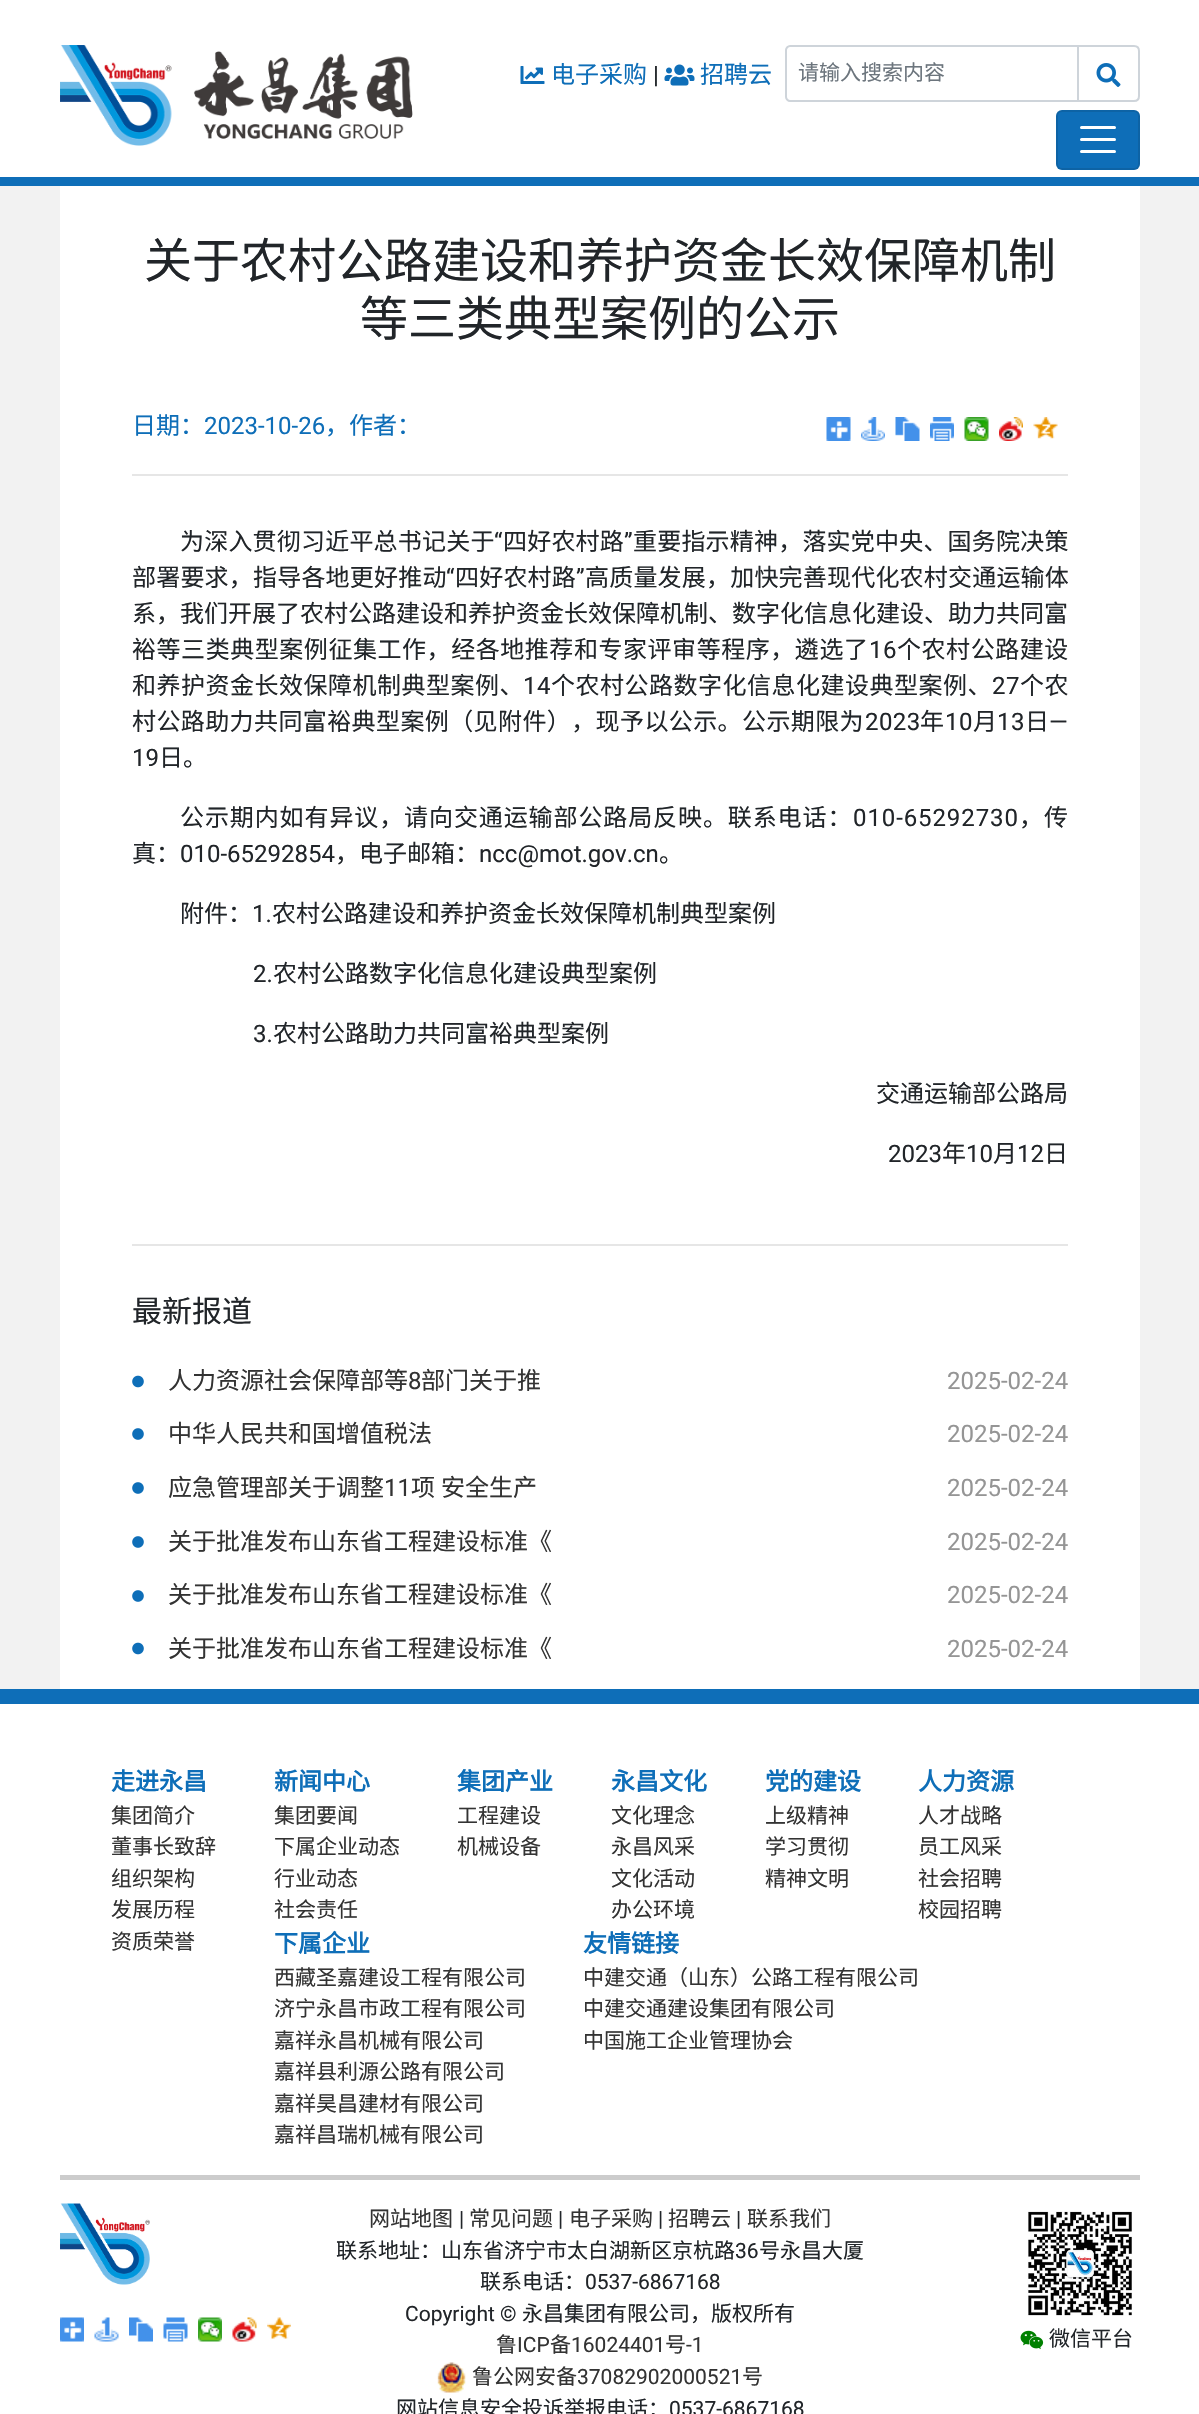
#include "include/core/SkBlurTypes.h"
#include "include/core/SkCanvas.h"
#include "include/core/SkData.h"
#include "include/core/SkFont.h"
#include "include/core/SkFontMgr.h"
#include "include/core/SkImage.h"
#include "include/core/SkMaskFilter.h"
#include "include/core/SkPaint.h"
#include "include/core/SkPathBuilder.h"
#include "include/core/SkTextBlob.h"
#include "include/effects/SkDashPathEffect.h"
#include "include/effects/SkGradientShader.h"
#include "include/utils/SkParsePath.h"

extern sk_sp<SkFontMgr> fontMgr;

void draw(SkCanvas* canvas) {
    SkPaint p;
    p.setAntiAlias(true);
    auto font = [&](const char* family, int weight, float size, bool italic = false) {
        SkFontStyle style(weight, SkFontStyle::kNormal_Width,
            italic ? SkFontStyle::kItalic_Slant : SkFontStyle::kUpright_Slant);
        SkFont result(fontMgr->matchFamilyStyle(family, style), size);
        result.setSubpixel(true);
        return result;
    };
    auto drawTracked = [&](const char* s, float x, float y, const SkFont& font, const SkPaint& ink, float letter, float word) {
        std::vector<SkGlyphID> glyphs(font.countText(s, strlen(s), SkTextEncoding::kUTF8));
        std::vector<float> xs(glyphs.size());
        font.textToGlyphs(s, strlen(s), SkTextEncoding::kUTF8, glyphs);
        font.getXPos(glyphs, xs, x);
        float extra = 0;
        for (size_t i = 0; i < glyphs.size(); i++) {
            xs[i] += extra;
            extra += letter + word * (glyphs[i] == font.unicharToGlyph(' '));
        }
        canvas->drawTextBlob(SkTextBlob::MakeFromPosHGlyphs(glyphs, xs, y, font), 0, 0, ink);
    };
    auto drawPhoto = [&](const char* path, float l, float t, float r, float b) {
        auto image = SkImages::DeferredFromEncodedData(SkData::MakeFromFileName(path));
        canvas->drawImageRect(image, SkRect::MakeLTRB(l, t, r, b), SkSamplingOptions());
    };
    canvas->clear(0xFFF2F2F2);
    p.setColor(0xFFFFFFFF);
    canvas->drawRect(SkRect::MakeLTRB(0, 0, 1199, 177), p);
    p.setColor(0xFF0E6EB8);
    canvas->drawRect(SkRect::MakeLTRB(0, 177, 1199, 186), p);
    drawPhoto("media/1.png", 60, 45, 413, 146);
    drawPhoto("media/2.png", 520, 66, 545, 84);
    auto font1 = font("Noto Sans CJK SC", 400, 24);
    canvas->drawString("电子采购", 551, 83, font1, p);
    auto font2 = font("Roboto", 400, 24);
    p.setColor(0xFF212529);
    canvas->drawString("|", 653, 83, font2, p);
    drawPhoto("media/3.png", 664, 64, 695, 86);
    p.setColor(0xFF0E6EB8);
    canvas->drawString("招聘云", 700, 83, font1, p);
    p.setStyle(SkPaint::kStroke_Style);
    p.setStrokeWidth(2);
    p.setColor(0xFFCED4DA);
    canvas->drawPath(SkPathBuilder().moveTo(790, 46).lineTo(1078, 46).lineTo(1078, 101).lineTo(790, 101).cubicTo(788, 101, 786, 99, 786, 97).lineTo(786, 50).cubicTo(786, 48, 788, 46, 790, 46).close().detach(), p);
    auto font3 = font("Noto Sans CJK SC", 400, 21);
    p.setStyle(SkPaint::kFill_Style);
    p.setColor(0xFF6C757D);
    canvas->drawString("请输入搜索内容", 798, 80, font3, p);
    p.setStyle(SkPaint::kStroke_Style);
    p.setColor(0xFFCED4DA);
    canvas->drawPath(SkPathBuilder().moveTo(1078, 46).lineTo(1134, 46).cubicTo(1137, 46, 1139, 48, 1139, 51).lineTo(1139, 96).cubicTo(1139, 99, 1137, 101, 1134, 101).lineTo(1078, 101).close().detach(), p);
    drawPhoto("media/4.png", 1096, 63, 1121, 87);
    p.setStyle(SkPaint::kFill_Style);
    p.setColor(0xFF0E6EB8);
    canvas->drawRoundRect(SkRect::MakeLTRB(1056, 110, 1140, 170), 6, 6, p);
    p.setStyle(SkPaint::kStroke_Style);
    p.setColor(0x1A000000);
    canvas->drawRoundRect(SkRect::MakeLTRB(1057, 111, 1139, 169), 5, 5, p);
    p.setStrokeWidth(3);
    p.setStrokeCap(SkPaint::kRound_Cap);
    p.setColor(0xFFFFFFFF);
    canvas->drawPath(SkPathBuilder().moveTo(1081.5f, 127.5f).lineTo(1114.5f, 127.5f).moveTo(1081.5f, 139.5f).lineTo(1114.5f, 139.5f).moveTo(1081.5f, 151.5f).lineTo(1114.5f, 151.5f).detach(), p);
    p.setStyle(SkPaint::kFill_Style);
    canvas->drawRect(SkRect::MakeLTRB(60, 186, 1140, 1689), p);
    auto font4 = font("Noto Sans CJK SC", 400, 48);
    p.setColor(0xFF212529);
    canvas->drawString("关于农村公路建设和养护资金长效保障机制", 144, 278, font4, p);
    canvas->drawString("等三类典型案例的公示", 360, 336, font4, p);
    p.setColor(0xFF0E6EB8);
    canvas->drawString("日期：", 132, 434, font1, p);
    canvas->drawString("2023-10-26", 204, 434, font2, p);
    canvas->drawString("，作者：", 325, 434, font1, p);
    drawPhoto("media/5.png", 826, 417, 851, 441);
    drawPhoto("media/6.png", 861, 417, 885, 441);
    drawPhoto("media/7.png", 895, 417, 920, 441);
    drawPhoto("media/8.png", 930, 417, 954, 441);
    drawPhoto("media/9.png", 964, 417, 989, 441);
    drawPhoto("media/10.png", 999, 417, 1023, 441);
    drawPhoto("media/11.png", 1033, 417, 1058, 439);
    p.setColor(0xFFE6E6E6);
    canvas->drawRect(SkRect::MakeLTRB(132, 474, 1068, 476), p);
    p.setColor(0xFF212529);
    drawTracked("为深入贯彻习近平总书记关于", 180, 550, font1, p, 0.2f, 0);
    drawTracked("“", 494, 550, font2, p, 0.2f, 0);
    drawTracked("四好农村路", 503, 550, font1, p, 0.2f, 0);
    drawTracked("”", 624, 550, font2, p, 0.2f, 0);
    drawTracked("重要指示精神，落实党中央、国务院决策", 633, 550, font1, p, 0.2f, 0);
    drawTracked("部署要求，指导各地更好推动", 132, 586, font1, p, 0.2f, 0);
    drawTracked("“", 446, 586, font2, p, 0.2f, 0);
    drawTracked("四好农村路", 455, 586, font1, p, 0.2f, 0);
    drawTracked("”", 576, 586, font2, p, 0.2f, 0);
    drawTracked("高质量发展，加快完善现代化农村交通运输体", 585, 586, font1, p, 0.2f, 0);
    canvas->drawString("系，我们开展了农村公路建设和养护资金长效保障机制、数字化信息化建设、助力共同富", 132, 622, font1, p);
    drawTracked("裕等三类典型案例征集工作，经各地推荐和专家评审等程序，遴选了", 132, 658, font1, p, 0.55f, 0);
    drawTracked("16", 869, 658, font2, p, 0.55f, 0);
    drawTracked("个农村公路建设", 897, 658, font1, p, 0.55f, 0);
    drawTracked("和养护资金长效保障机制典型案例、", 132, 694, font1, p, 0.5f, 0);
    drawTracked("14", 523, 694, font2, p, 0.5f, 0);
    drawTracked("个农村公路数字化信息化建设典型案例、", 551, 694, font1, p, 0.5f, 0);
    drawTracked("27", 992, 694, font2, p, 0.5f, 0);
    drawTracked("个农", 1020, 694, font1, p, 0.5f, 0);
    drawTracked("村公路助力共同富裕典型案例（见附件），现予以公示。公示期限为", 132, 730, font1, p, 0.4f, 0);
    drawTracked("2023", 865, 730, font2, p, 0.4f, 0);
    drawTracked("年", 920, 730, font1, p, 0.4f, 0);
    drawTracked("10", 945, 730, font2, p, 0.4f, 0);
    drawTracked("月", 973, 730, font1, p, 0.4f, 0);
    drawTracked("13", 997, 730, font2, p, 0.4f, 0);
    drawTracked("日", 1025, 730, font1, p, 0.4f, 0);
    drawTracked("—", 1049, 730, font2, p, 0.4f, 0);
    canvas->drawString("19", 132, 766, font2, p);
    canvas->drawString("日。", 159, 766, font1, p);
    drawTracked("公示期内如有异议，请向交通运输部公路局反映。联系电话：", 180, 826, font1, p, 0.9f, 0);
    drawTracked("010-65292730", 853, 826, font2, p, 0.9f, 0);
    drawTracked("，传", 1019, 826, font1, p, 0.9f, 0);
    canvas->drawString("真：", 132, 862, font1, p);
    canvas->drawString("010-65292854", 180, 862, font2, p);
    canvas->drawString("，电子邮箱：", 335, 862, font1, p);
    canvas->drawString("ncc@mot.gov.cn", 479, 862, font2, p);
    canvas->drawString("。", 659, 862, font1, p);
    canvas->drawString("附件：", 180, 922, font1, p);
    canvas->drawString("1.", 252, 922, font2, p);
    canvas->drawString("农村公路建设和养护资金长效保障机制典型案例", 272, 922, font1, p);
    canvas->drawString("2.", 253, 982, font2, p);
    canvas->drawString("农村公路数字化信息化建设典型案例", 273, 982, font1, p);
    canvas->drawString("3.", 253, 1042, font2, p);
    canvas->drawString("农村公路助力共同富裕典型案例", 273, 1042, font1, p);
    canvas->drawString("交通运输部公路局", 876, 1102, font1, p);
    canvas->drawString("2023", 888, 1162, font2, p);
    canvas->drawString("年", 942, 1162, font1, p);
    canvas->drawString("10", 966, 1162, font2, p);
    canvas->drawString("月", 993, 1162, font1, p);
    canvas->drawString("12", 1017, 1162, font2, p);
    canvas->drawString("日", 1044, 1162, font1, p);
    p.setColor(0xFFE6E6E6);
    canvas->drawRect(SkRect::MakeLTRB(132, 1244, 1068, 1246), p);
    auto font5 = font("Noto Sans CJK SC", 400, 30);
    p.setColor(0xFF212529);
    canvas->drawString("最新报道", 132, 1322, font5, p);
    drawPhoto("media/12.png", 132, 1375, 144, 1388);
    p.setColor(0xFF333333);
    canvas->drawString("人力资源社会保障部等", 168, 1389, font1, p);
    canvas->drawString("8", 408, 1389, font2, p);
    canvas->drawString("部门关于推", 421, 1389, font1, p);
    p.setColor(0xFF959595);
    canvas->drawString("2025-02-24", 947, 1389, font2, p);
    drawPhoto("media/13.png", 132, 1428, 144, 1440);
    p.setColor(0xFF333333);
    canvas->drawString("中华人民共和国增值税法", 168, 1442, font1, p);
    p.setColor(0xFF959595);
    canvas->drawString("2025-02-24", 947, 1442, font2, p);
    drawPhoto("media/13.png", 132, 1482, 144, 1494);
    p.setColor(0xFF333333);
    canvas->drawString("应急管理部关于调整", 168, 1496, font1, p);
    canvas->drawString("11", 384, 1496, font2, p);
    canvas->drawString("项", 411, 1496, font1, p);
    canvas->drawString("安全生产", 441, 1496, font1, p);
    p.setColor(0xFF959595);
    canvas->drawString("2025-02-24", 947, 1496, font2, p);
    drawPhoto("media/13.png", 132, 1536, 144, 1548);
    p.setColor(0xFF333333);
    canvas->drawString("关于批准发布山东省工程建设标准《", 168, 1550, font1, p);
    p.setColor(0xFF959595);
    canvas->drawString("2025-02-24", 947, 1550, font2, p);
    drawPhoto("media/13.png", 132, 1590, 144, 1602);
    p.setColor(0xFF333333);
    canvas->drawString("关于批准发布山东省工程建设标准《", 168, 1603, font1, p);
    p.setColor(0xFF959595);
    canvas->drawString("2025-02-24", 947, 1603, font2, p);
    drawPhoto("media/12.png", 132, 1642, 144, 1655);
    p.setColor(0xFF333333);
    canvas->drawString("关于批准发布山东省工程建设标准《", 168, 1657, font1, p);
    p.setColor(0xFF959595);
    canvas->drawString("2025-02-24", 947, 1657, font2, p);
    p.setColor(0xFF0E6EB8);
    canvas->drawRect(SkRect::MakeLTRB(0, 1689, 1199, 1704), p);
    p.setColor(0xFFFFFFFF);
    canvas->drawRect(SkRect::MakeLTRB(0, 1704, 1199, 2414), p);
    auto font6 = font("Noto Sans CJK SC", 700, 24);
    p.setColor(0xFF0E6EB8);
    canvas->drawString("走进永昌", 111, 1790, font6, p);
    p.setColor(0xFF333333);
    {
        const struct { const char* s; float x, y; } items[] = {
            {"集团简介", 111, 1823},
            {"董事长致辞", 111, 1854},
            {"组织架构", 111, 1886},
            {"发展历程", 111, 1917},
            {"资质荣誉", 111, 1949},
        };
        for (auto [s, x, y] : items) {
            canvas->drawString(s, x, y, font3, p);
        }
    }
    p.setColor(0xFF0E6EB8);
    canvas->drawString("新闻中心", 274, 1790, font6, p);
    p.setColor(0xFF333333);
    {
        const struct { const char* s; float x, y; } items[] = {
            {"集团要闻", 274, 1823},
            {"下属企业动态", 274, 1854},
            {"行业动态", 274, 1886},
            {"社会责任", 274, 1917},
        };
        for (auto [s, x, y] : items) {
            canvas->drawString(s, x, y, font3, p);
        }
    }
    p.setColor(0xFF0E6EB8);
    canvas->drawString("集团产业", 457, 1790, font6, p);
    p.setColor(0xFF333333);
    canvas->drawString("工程建设", 457, 1823, font3, p);
    canvas->drawString("机械设备", 457, 1854, font3, p);
    p.setColor(0xFF0E6EB8);
    canvas->drawString("永昌文化", 611, 1790, font6, p);
    p.setColor(0xFF333333);
    {
        const struct { const char* s; float x, y; } items[] = {
            {"文化理念", 611, 1823},
            {"永昌风采", 611, 1854},
            {"文化活动", 611, 1886},
            {"办公环境", 611, 1917},
        };
        for (auto [s, x, y] : items) {
            canvas->drawString(s, x, y, font3, p);
        }
    }
    p.setColor(0xFF0E6EB8);
    canvas->drawString("党的建设", 765, 1790, font6, p);
    p.setColor(0xFF333333);
    {
        const struct { const char* s; float x, y; } items[] = {
            {"上级精神", 765, 1823},
            {"学习贯彻", 765, 1854},
            {"精神文明", 765, 1886},
        };
        for (auto [s, x, y] : items) {
            canvas->drawString(s, x, y, font3, p);
        }
    }
    p.setColor(0xFF0E6EB8);
    canvas->drawString("人力资源", 918, 1790, font6, p);
    p.setColor(0xFF333333);
    {
        const struct { const char* s; float x, y; } items[] = {
            {"人才战略", 918, 1823},
            {"员工风采", 918, 1854},
            {"社会招聘", 918, 1886},
            {"校园招聘", 918, 1917},
        };
        for (auto [s, x, y] : items) {
            canvas->drawString(s, x, y, font3, p);
        }
    }
    p.setColor(0xFF0E6EB8);
    canvas->drawString("下属企业", 274, 1952, font6, p);
    p.setColor(0xFF333333);
    {
        const struct { const char* s; float x, y; } items[] = {
            {"西藏圣嘉建设工程有限公司", 274, 1985},
            {"济宁永昌市政工程有限公司", 274, 2016},
            {"嘉祥永昌机械有限公司", 274, 2048},
            {"嘉祥县利源公路有限公司", 274, 2079},
            {"嘉祥昊昌建材有限公司", 274, 2111},
            {"嘉祥昌瑞机械有限公司", 274, 2142},
        };
        for (auto [s, x, y] : items) {
            canvas->drawString(s, x, y, font3, p);
        }
    }
    p.setColor(0xFF0E6EB8);
    canvas->drawString("友情链接", 583, 1952, font6, p);
    p.setColor(0xFF333333);
    {
        const struct { const char* s; float x, y; } items[] = {
            {"中建交通（山东）公路工程有限公司", 583, 1985},
            {"中建交通建设集团有限公司", 583, 2016},
            {"中国施工企业管理协会", 583, 2048},
        };
        for (auto [s, x, y] : items) {
            canvas->drawString(s, x, y, font3, p);
        }
    }
    p.setColor(0xFFCCCCCC);
    canvas->drawRect(SkRect::MakeLTRB(60, 2175, 1140, 2180), p);
    drawPhoto("media/14.png", 60, 2203, 150, 2285);
    drawPhoto("media/15.png", 60, 2317, 84, 2342);
    drawPhoto("media/16.png", 94, 2317, 119, 2342);
    drawPhoto("media/17.png", 129, 2317, 153, 2342);
    drawPhoto("media/18.png", 163, 2317, 188, 2342);
    drawPhoto("media/19.png", 198, 2317, 222, 2342);
    drawPhoto("media/20.png", 232, 2317, 257, 2342);
    drawPhoto("media/21.png", 267, 2317, 291, 2339);
    p.setColor(0xFF333333);
    canvas->drawString("网站地图", 369, 2226, font3, p);
    auto font7 = font("Roboto", 400, 21);
    p.setColor(0xFF212529);
    canvas->drawString("|", 459, 2226, font7, p);
    p.setColor(0xFF333333);
    canvas->drawString("常见问题", 469, 2226, font3, p);
    p.setColor(0xFF212529);
    canvas->drawString("|", 558, 2226, font7, p);
    p.setColor(0xFF333333);
    canvas->drawString("电子采购", 569, 2226, font3, p);
    p.setColor(0xFF212529);
    canvas->drawString("|", 658, 2226, font7, p);
    p.setColor(0xFF333333);
    canvas->drawString("招聘云", 668, 2226, font3, p);
    p.setColor(0xFF212529);
    canvas->drawString("|", 736, 2226, font7, p);
    p.setColor(0xFF333333);
    canvas->drawString("联系我们", 747, 2226, font3, p);
    p.setColor(0xFF212529);
    canvas->drawString("联系地址：山东省济宁市太白湖新区京杭路", 336, 2258, font3, p);
    canvas->drawString("36", 735, 2258, font7, p);
    canvas->drawString("号永昌大厦", 759, 2258, font3, p);
    canvas->drawString("联系电话：", 480, 2289, font3, p);
    canvas->drawString("0537-6867168", 585, 2289, font7, p);
    canvas->drawString("Copyright ©", 405, 2321, font7, p);
    canvas->drawString("永昌集团有限公司，版权所有", 522, 2321, font3, p);
    p.setColor(0xFF333333);
    canvas->drawString("鲁", 496, 2352, font3, p);
    canvas->drawString("ICP", 517, 2352, font7, p);
    canvas->drawString("备", 550, 2352, font3, p);
    canvas->drawString("16024401", 571, 2352, font7, p);
    canvas->drawString("号", 665, 2352, font3, p);
    canvas->drawString("-1", 686, 2352, font7, p);
    drawPhoto("media/22.png", 437, 2362, 466, 2393);
    canvas->drawString("鲁公网安备", 472, 2384, font3, p);
    canvas->drawString("37082902000521", 577, 2384, font7, p);
    canvas->drawString("号", 742, 2384, font3, p);
    p.setColor(0xFF212529);
    canvas->drawString("网站信息安全投诉举报电话：", 396, 2416, font3, p);
    canvas->drawString("0537-6867168", 669, 2416, font7, p);
    drawPhoto("media/23.png", 1027, 2211, 1132, 2316);
    drawPhoto("media/24.png", 1020, 2330, 1044, 2350);
    canvas->drawString("微信平台", 1049, 2346, font3, p);
}
